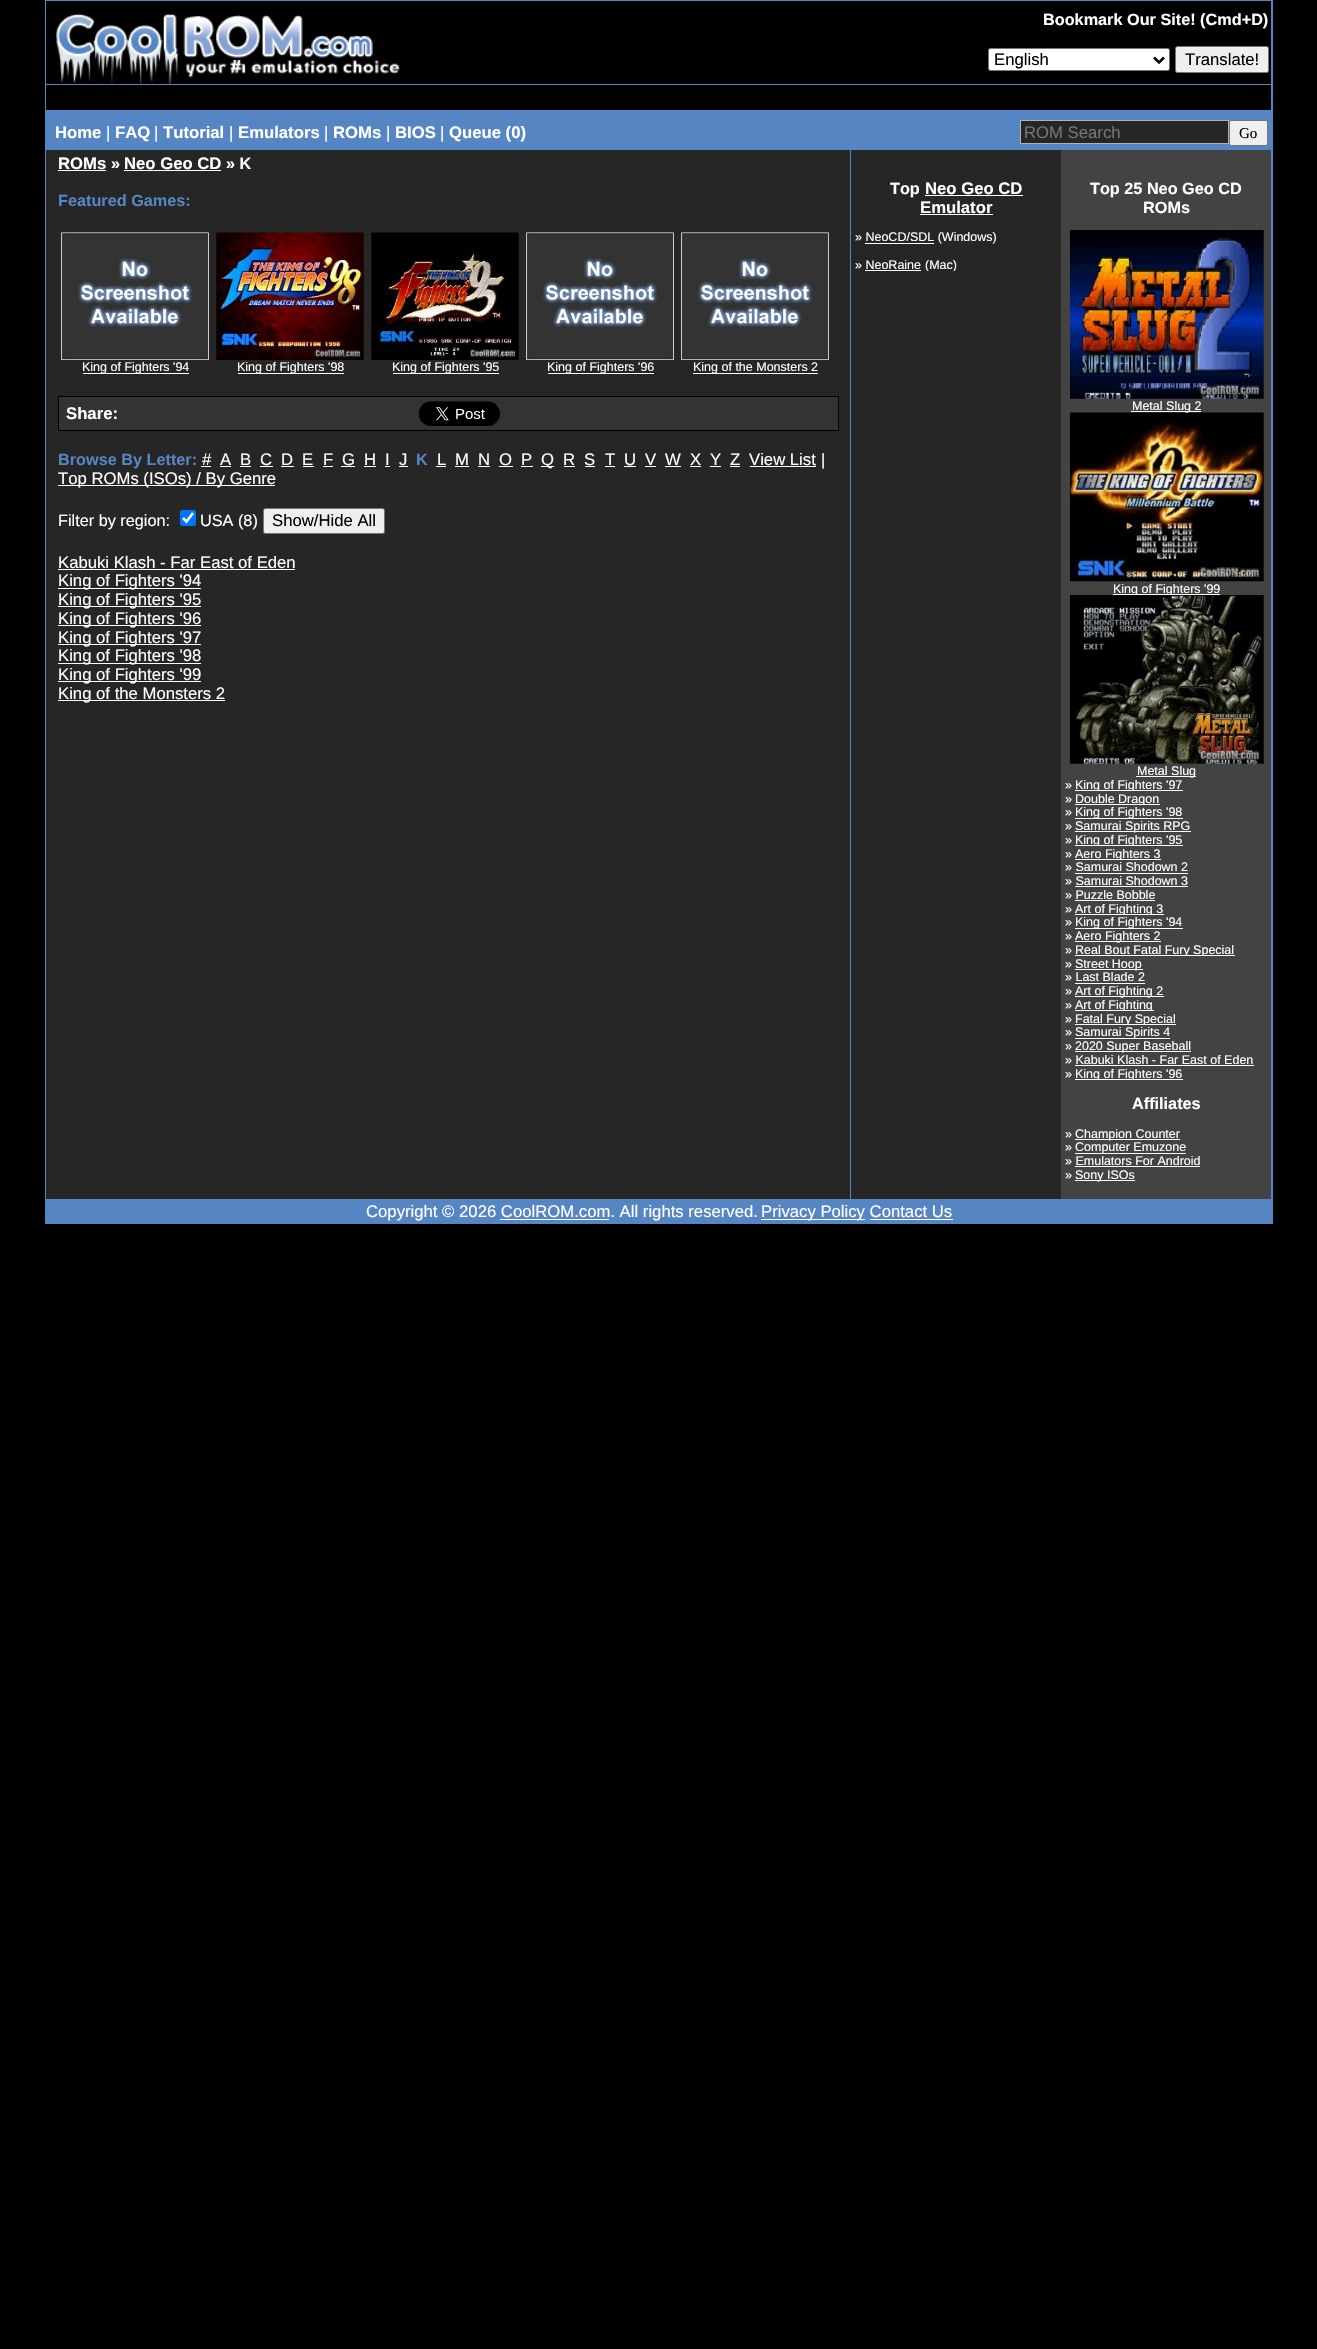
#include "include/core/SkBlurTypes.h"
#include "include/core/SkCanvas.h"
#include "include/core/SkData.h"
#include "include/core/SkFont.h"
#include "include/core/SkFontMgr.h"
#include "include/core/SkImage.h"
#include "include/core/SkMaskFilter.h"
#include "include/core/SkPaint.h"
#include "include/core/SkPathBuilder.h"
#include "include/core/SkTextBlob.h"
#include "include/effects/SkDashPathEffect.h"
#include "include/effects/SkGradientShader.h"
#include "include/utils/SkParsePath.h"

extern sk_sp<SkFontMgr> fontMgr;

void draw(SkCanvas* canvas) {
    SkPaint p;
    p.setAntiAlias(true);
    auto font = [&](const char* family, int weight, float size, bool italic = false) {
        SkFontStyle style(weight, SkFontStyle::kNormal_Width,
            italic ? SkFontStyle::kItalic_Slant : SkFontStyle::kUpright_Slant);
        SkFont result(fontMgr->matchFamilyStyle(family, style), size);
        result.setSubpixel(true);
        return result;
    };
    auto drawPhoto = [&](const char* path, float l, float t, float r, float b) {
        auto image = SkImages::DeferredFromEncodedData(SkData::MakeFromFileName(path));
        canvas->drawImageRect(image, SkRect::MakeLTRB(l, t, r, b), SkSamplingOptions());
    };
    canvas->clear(0xFF000000);
    p.setColor(0xFF5685C4);
    canvas->drawRect(SkRect::MakeLTRB(45, 0, 1273, 1224), p);
    p.setColor(0xFF000000);
    canvas->drawRect(SkRect::MakeLTRB(46, 1, 1271, 84), p);
    drawPhoto("media/1.png", 56, 13, 401, 84);
    auto font1 = font("Liberation Sans", 700, 16.25f);
    p.setColor(0xFFFFFFFF);
    canvas->drawString("Bookmark Our Site! (Cmd+D)", 1043, 25, font1, p);
    canvas->drawRoundRect(SkRect::MakeLTRB(988.5f, 48.5f, 1169.5f, 70.5f), 2, 2, p);
    p.setStyle(SkPaint::kStroke_Style);
    p.setStrokeWidth(1);
    p.setColor(0xFF767676);
    canvas->drawRoundRect(SkRect::MakeLTRB(988.5f, 48.5f, 1169.5f, 70.5f), 2, 2, p);
    p.setStrokeWidth(2.5f);
    p.setColor(0xFF000000);
    canvas->drawPath(SkPathBuilder().moveTo(1154, 57.5f).lineTo(1159, 62.5f).lineTo(1164, 57.5f).detach(), p);
    auto font2 = font("Liberation Sans", 400, 16.7f);
    p.setStyle(SkPaint::kFill_Style);
    canvas->drawString("English", 994, 65, font2, p);
    p.setColor(0xFFEFEFEF);
    canvas->drawRoundRect(SkRect::MakeLTRB(1175.5f, 46.5f, 1268.5f, 72.5f), 2, 2, p);
    p.setStyle(SkPaint::kStroke_Style);
    p.setStrokeWidth(1);
    p.setColor(0xFF767676);
    canvas->drawRoundRect(SkRect::MakeLTRB(1175.5f, 46.5f, 1268.5f, 72.5f), 2, 2, p);
    p.setStyle(SkPaint::kFill_Style);
    p.setColor(0xFF000000);
    canvas->drawString("Translate!", 1185, 65, font2, p);
    canvas->drawRect(SkRect::MakeLTRB(46, 85, 1271, 110), p);
    auto font3 = font("Liberation Sans", 700, 16.7f);
    p.setColor(0xFFFFFFFF);
    canvas->drawString("Home", 55, 138, font3, p);
    canvas->drawString("|", 106, 138, font2, p);
    canvas->drawString("FAQ", 115, 138, font3, p);
    canvas->drawString("|", 154, 138, font2, p);
    canvas->drawString("Tutorial", 163, 138, font3, p);
    canvas->drawString("|", 229, 138, font2, p);
    canvas->drawString("Emulators", 238, 138, font3, p);
    canvas->drawString("|", 324, 138, font2, p);
    canvas->drawString("ROMs", 333, 138, font3, p);
    canvas->drawString("|", 386, 138, font2, p);
    canvas->drawString("BIOS", 395, 138, font3, p);
    canvas->drawString("|", 440, 138, font2, p);
    canvas->drawString("Queue (0)", 449, 138, font3, p);
    p.setColor(0xFF262626);
    canvas->drawRect(SkRect::MakeLTRB(1020.5f, 120.5f, 1228.5f, 143.5f), p);
    p.setStyle(SkPaint::kStroke_Style);
    p.setColor(0xFFB2B2B2);
    canvas->drawRect(SkRect::MakeLTRB(1020.5f, 120.5f, 1228.5f, 143.5f), p);
    p.setStyle(SkPaint::kFill_Style);
    p.setColor(0xFF757575);
    canvas->drawString("ROM Search", 1024, 138, font2, p);
    p.setColor(0xFFEFEFEF);
    canvas->drawRoundRect(SkRect::MakeLTRB(1229.5f, 120.5f, 1267.5f, 145.5f), 2, 2, p);
    p.setStyle(SkPaint::kStroke_Style);
    p.setColor(0xFF767676);
    canvas->drawRoundRect(SkRect::MakeLTRB(1229.5f, 120.5f, 1267.5f, 145.5f), 2, 2, p);
    auto font4 = font("Liberation Serif", 400, 15);
    p.setStyle(SkPaint::kFill_Style);
    p.setColor(0xFF000000);
    canvas->drawString("Go", 1239, 138, font4, p);
    p.setColor(0xFF262626);
    canvas->drawRect(SkRect::MakeLTRB(46, 150, 850, 1199), p);
    p.setColor(0xFFFFFFFF);
    canvas->drawString("ROMs", 58, 169, font3, p);
    canvas->drawRect(SkRect::MakeLTRB(58, 170, 106, 171), p);
    canvas->drawString("»", 111, 169, font1, p);
    canvas->drawString("Neo Geo CD", 124, 169, font3, p);
    canvas->drawRect(SkRect::MakeLTRB(124, 170, 221, 171), p);
    canvas->drawString("» K", 226, 169, font1, p);
    p.setColor(0xFF5685C4);
    canvas->drawString("Featured Games:", 58, 206, font1, p);
    drawPhoto("media/2.png", 61, 232, 209, 360);
    p.setColor(0xFFFFFFFF);
    canvas->drawRect(SkRect::MakeLTRB(83, 373, 189, 374), p);
    auto font5 = font("Liberation Sans", 400, 12.5f);
    canvas->drawString("King of Fighters '94", 82, 371, font5, p);
    drawPhoto("media/3.png", 216, 232, 364, 360);
    canvas->drawRect(SkRect::MakeLTRB(238, 373, 344, 374), p);
    canvas->drawString("King of Fighters '98", 237, 371, font5, p);
    drawPhoto("media/4.png", 371, 232, 519, 360);
    canvas->drawRect(SkRect::MakeLTRB(393, 373, 499, 374), p);
    canvas->drawString("King of Fighters '95", 392, 371, font5, p);
    drawPhoto("media/2.png", 526, 232, 674, 360);
    canvas->drawRect(SkRect::MakeLTRB(548, 373, 654, 374), p);
    canvas->drawString("King of Fighters '96", 547, 371, font5, p);
    drawPhoto("media/5.png", 681, 232, 829, 360);
    canvas->drawRect(SkRect::MakeLTRB(693, 373, 818, 374), p);
    canvas->drawString("King of the Monsters 2", 693, 371, font5, p);
    p.setColor(0xFF333333);
    canvas->drawRect(SkRect::MakeLTRB(58.5f, 396.5f, 838.5f, 430.5f), p);
    p.setStyle(SkPaint::kStroke_Style);
    p.setColor(0xFF000000);
    canvas->drawRect(SkRect::MakeLTRB(58.5f, 396.5f, 838.5f, 430.5f), p);
    p.setStyle(SkPaint::kFill_Style);
    p.setColor(0xFFFFFFFF);
    canvas->drawString("Share:", 66, 419, font3, p);
    drawPhoto("media/6.png", 419, 401, 500, 426);
    p.setColor(0xFF5685C4);
    canvas->drawString("Browse By Letter:", 58, 465, font1, p);
    p.setColor(0xFFFFFFFF);
    canvas->drawString("#", 202, 465, font2, p);
    canvas->drawRect(SkRect::MakeLTRB(201, 466, 211, 467), p);
    canvas->drawString("A", 220, 465, font2, p);
    canvas->drawRect(SkRect::MakeLTRB(220, 466, 231, 467), p);
    canvas->drawString("B", 240, 465, font2, p);
    canvas->drawRect(SkRect::MakeLTRB(240, 466, 251, 467), p);
    canvas->drawString("C", 260, 465, font2, p);
    canvas->drawRect(SkRect::MakeLTRB(260, 466, 273, 467), p);
    canvas->drawString("D", 281, 465, font2, p);
    canvas->drawRect(SkRect::MakeLTRB(281, 466, 294, 467), p);
    canvas->drawString("E", 302, 465, font2, p);
    canvas->drawRect(SkRect::MakeLTRB(303, 466, 314, 467), p);
    canvas->drawString("F", 323, 465, font2, p);
    canvas->drawRect(SkRect::MakeLTRB(323, 466, 333, 467), p);
    canvas->drawString("G", 342, 465, font2, p);
    canvas->drawRect(SkRect::MakeLTRB(341, 466, 355, 467), p);
    canvas->drawString("H", 364, 465, font2, p);
    canvas->drawRect(SkRect::MakeLTRB(364, 466, 376, 467), p);
    canvas->drawString("I", 385, 465, font2, p);
    canvas->drawRect(SkRect::MakeLTRB(385, 466, 390, 467), p);
    canvas->drawString("J", 399, 465, font2, p);
    canvas->drawRect(SkRect::MakeLTRB(399, 466, 408, 467), p);
    p.setColor(0xFF5685C4);
    canvas->drawString("K", 416, 465, font1, p);
    p.setColor(0xFFFFFFFF);
    canvas->drawString("L", 437, 465, font2, p);
    canvas->drawRect(SkRect::MakeLTRB(436, 466, 446, 467), p);
    canvas->drawString("M", 455, 465, font2, p);
    canvas->drawRect(SkRect::MakeLTRB(455, 466, 469, 467), p);
    canvas->drawString("N", 478, 465, font2, p);
    canvas->drawRect(SkRect::MakeLTRB(478, 466, 490, 467), p);
    canvas->drawString("O", 499, 465, font2, p);
    canvas->drawRect(SkRect::MakeLTRB(499, 466, 513, 467), p);
    canvas->drawString("P", 521, 465, font2, p);
    canvas->drawRect(SkRect::MakeLTRB(521, 466, 533, 467), p);
    canvas->drawRect(SkRect::MakeLTRB(541, 466, 554, 467), p);
    canvas->drawString("Q", 541, 465, font2, p);
    canvas->drawString("R", 563, 465, font2, p);
    canvas->drawRect(SkRect::MakeLTRB(564, 466, 575, 467), p);
    canvas->drawString("S", 584, 465, font2, p);
    canvas->drawRect(SkRect::MakeLTRB(585, 466, 595, 467), p);
    canvas->drawString("T", 605, 465, font2, p);
    canvas->drawRect(SkRect::MakeLTRB(605, 466, 615, 467), p);
    canvas->drawString("U", 624, 465, font2, p);
    canvas->drawRect(SkRect::MakeLTRB(624, 466, 636, 467), p);
    canvas->drawString("V", 645, 465, font2, p);
    canvas->drawRect(SkRect::MakeLTRB(645, 466, 656, 467), p);
    canvas->drawString("W", 665, 465, font2, p);
    canvas->drawRect(SkRect::MakeLTRB(665, 466, 681, 467), p);
    canvas->drawString("X", 690, 465, font2, p);
    canvas->drawRect(SkRect::MakeLTRB(690, 466, 701, 467), p);
    canvas->drawString("Y", 710, 465, font2, p);
    canvas->drawRect(SkRect::MakeLTRB(710, 466, 721, 467), p);
    canvas->drawString("Z", 730, 465, font2, p);
    canvas->drawRect(SkRect::MakeLTRB(730, 466, 740, 467), p);
    canvas->drawString("View List", 749, 465, font2, p);
    canvas->drawRect(SkRect::MakeLTRB(750, 466, 816, 467), p);
    auto font6 = font("Liberation Sans", 400, 16.25f);
    canvas->drawString("|", 821, 465, font6, p);
    canvas->drawRect(SkRect::MakeLTRB(58, 485, 275, 486), p);
    canvas->drawString("Top ROMs (ISOs) / By Genre", 58, 484, font2, p);
    canvas->drawString("Filter by region:", 58, 526, font6, p);
    p.setColor(0xFF0075FF);
    canvas->drawRoundRect(SkRect::MakeLTRB(180, 510, 196, 526), 2.5f, 2.5f, p);
    p.setStyle(SkPaint::kStroke_Style);
    p.setStrokeWidth(2.6f);
    p.setColor(0xFFFFFFFF);
    canvas->drawPath(SkPathBuilder().moveTo(183, 518).lineTo(186.5f, 521.5f).lineTo(193, 513).detach(), p);
    p.setStyle(SkPaint::kFill_Style);
    canvas->drawString("USA (8)", 200, 526, font6, p);
    p.setColor(0xFFEFEFEF);
    canvas->drawRoundRect(SkRect::MakeLTRB(263.5f, 508.5f, 384.5f, 533.5f), 2, 2, p);
    p.setStyle(SkPaint::kStroke_Style);
    p.setStrokeWidth(1);
    p.setColor(0xFF767676);
    canvas->drawRoundRect(SkRect::MakeLTRB(263.5f, 508.5f, 384.5f, 533.5f), 2, 2, p);
    p.setStyle(SkPaint::kFill_Style);
    p.setColor(0xFF000000);
    canvas->drawString("Show/Hide All", 272, 526, font2, p);
    p.setColor(0xFFFFFFFF);
    canvas->drawString("Kabuki Klash - Far East of Eden", 58, 568, font2, p);
    canvas->drawRect(SkRect::MakeLTRB(58, 569, 295, 570), p);
    canvas->drawRect(SkRect::MakeLTRB(58, 588, 201, 589), p);
    canvas->drawString("King of Fighters '94", 58, 586, font2, p);
    canvas->drawRect(SkRect::MakeLTRB(58, 606, 201, 607), p);
    canvas->drawString("King of Fighters '95", 58, 605, font2, p);
    canvas->drawRect(SkRect::MakeLTRB(58, 625, 201, 626), p);
    canvas->drawString("King of Fighters '96", 58, 624, font2, p);
    canvas->drawRect(SkRect::MakeLTRB(58, 644, 201, 645), p);
    canvas->drawString("King of Fighters '97", 58, 643, font2, p);
    canvas->drawRect(SkRect::MakeLTRB(58, 663, 201, 664), p);
    canvas->drawString("King of Fighters '98", 58, 661, font2, p);
    canvas->drawRect(SkRect::MakeLTRB(58, 681, 201, 682), p);
    canvas->drawString("King of Fighters '99", 58, 680, font2, p);
    canvas->drawRect(SkRect::MakeLTRB(58, 700, 225, 701), p);
    canvas->drawString("King of the Monsters 2", 58, 699, font2, p);
    {
        const struct { float l, t, r, b; SkColor color; } items[] = {
            {851, 150, 1061, 175, 0xFF262626},
            {1061, 150, 1271, 175, 0xFF434343},
            {851, 175, 1061, 1199, 0xFF262626},
        };
        for (auto [l, t, r, b, color] : items) {
            p.setColor(color);
            canvas->drawRect(SkRect::MakeLTRB(l, t, r, b), p);
        }
    }
    p.setColor(0xFFFFFFFF);
    canvas->drawString("Top", 890, 194, font1, p);
    canvas->drawString("Neo Geo CD", 925, 194, font3, p);
    canvas->drawRect(SkRect::MakeLTRB(925, 195, 1023, 196), p);
    canvas->drawString("Emulator", 920, 213, font3, p);
    canvas->drawRect(SkRect::MakeLTRB(920, 214, 993, 215), p);
    canvas->drawString("» NeoCD/SDL (Windows)", 855, 241, font5, p);
    canvas->drawRect(SkRect::MakeLTRB(865, 243, 934, 244), p);
    canvas->drawString("» NeoRaine", 855, 269, font5, p);
    canvas->save();
    canvas->clipRect(SkRect::MakeLTRB(855, 258, 1049, 271));
    canvas->drawString("(Mac)", 925, 269, font5, p);
    canvas->restore();
    canvas->drawRect(SkRect::MakeLTRB(865, 270, 921, 271), p);
    p.setColor(0xFF434343);
    canvas->drawRect(SkRect::MakeLTRB(1061, 175, 1271, 1199), p);
    p.setColor(0xFFFFFFFF);
    canvas->drawString("Top 25 Neo Geo CD", 1090, 194, font1, p);
    canvas->drawString("ROMs", 1143, 213, font1, p);
    drawPhoto("media/7.png", 1070, 230, 1264, 399);
    canvas->drawRect(SkRect::MakeLTRB(1131, 411, 1201, 412), p);
    drawPhoto("media/8.png", 1070, 412, 1264, 582);
    canvas->drawString("Metal Slug 2", 1132, 410, font5, p);
    canvas->drawRect(SkRect::MakeLTRB(1113, 594, 1220, 595), p);
    canvas->save();
    canvas->clipRect(SkRect::MakeLTRB(1070, 581, 1264, 595));
    canvas->drawString("King of Fighters '99", 1113, 593, font5, p);
    canvas->restore();
    drawPhoto("media/9.png", 1070, 595, 1264, 764);
    canvas->drawRect(SkRect::MakeLTRB(1136, 776, 1196, 777), p);
    canvas->drawString("Metal Slug", 1137, 775, font5, p);
    canvas->drawString("»", 1065, 789, font5, p);
    canvas->drawRect(SkRect::MakeLTRB(1075, 790, 1183, 791), p);
    canvas->save();
    canvas->clipRect(SkRect::MakeLTRB(1065, 778, 1259, 791));
    canvas->drawString("King of Fighters '97", 1075, 789, font5, p);
    canvas->restore();
    canvas->drawString("»", 1065, 803, font5, p);
    canvas->drawRect(SkRect::MakeLTRB(1075, 804, 1160, 805), p);
    canvas->save();
    canvas->clipRect(SkRect::MakeLTRB(1065, 791, 1259, 805));
    canvas->drawString("Double Dragon", 1075, 803, font5, p);
    canvas->restore();
    canvas->drawString("»", 1065, 816, font5, p);
    canvas->drawRect(SkRect::MakeLTRB(1075, 818, 1183, 819), p);
    canvas->drawString("King of Fighters '98", 1075, 816, font5, p);
    canvas->drawString("»", 1065, 830, font5, p);
    canvas->drawRect(SkRect::MakeLTRB(1075, 831, 1191, 832), p);
    canvas->drawString("Samurai Spirits RPG", 1075, 830, font5, p);
    canvas->drawString("»", 1065, 844, font5, p);
    canvas->drawRect(SkRect::MakeLTRB(1075, 845, 1183, 846), p);
    canvas->save();
    canvas->clipRect(SkRect::MakeLTRB(1065, 833, 1259, 846));
    canvas->drawString("King of Fighters '95", 1075, 844, font5, p);
    canvas->restore();
    canvas->drawString("»", 1065, 858, font5, p);
    canvas->drawRect(SkRect::MakeLTRB(1075, 859, 1161, 860), p);
    canvas->save();
    canvas->clipRect(SkRect::MakeLTRB(1065, 846, 1259, 860));
    canvas->drawString("Aero Fighters 3", 1075, 858, font5, p);
    canvas->restore();
    canvas->drawString("» Samurai Shodown 2", 1065, 871, font5, p);
    canvas->drawRect(SkRect::MakeLTRB(1075, 873, 1188, 874), p);
    canvas->drawString("» Samurai Shodown 3", 1065, 885, font5, p);
    canvas->drawRect(SkRect::MakeLTRB(1075, 886, 1188, 887), p);
    canvas->drawString("» Puzzle Bobble", 1065, 899, font5, p);
    canvas->drawRect(SkRect::MakeLTRB(1075, 900, 1155, 901), p);
    canvas->drawString("»", 1065, 913, font5, p);
    canvas->drawRect(SkRect::MakeLTRB(1075, 914, 1164, 915), p);
    canvas->save();
    canvas->clipRect(SkRect::MakeLTRB(1065, 901, 1259, 915));
    canvas->drawString("Art of Fighting 3", 1075, 913, font5, p);
    canvas->restore();
    canvas->drawString("»", 1065, 926, font5, p);
    canvas->drawRect(SkRect::MakeLTRB(1075, 928, 1183, 929), p);
    canvas->drawString("King of Fighters '94", 1075, 926, font5, p);
    canvas->drawString("»", 1065, 940, font5, p);
    canvas->drawRect(SkRect::MakeLTRB(1075, 941, 1161, 942), p);
    canvas->drawString("Aero Fighters 2", 1075, 940, font5, p);
    canvas->drawString("»", 1065, 954, font5, p);
    canvas->drawRect(SkRect::MakeLTRB(1075, 955, 1235, 956), p);
    canvas->save();
    canvas->clipRect(SkRect::MakeLTRB(1065, 943, 1259, 956));
    canvas->drawString("Real Bout Fatal Fury Special", 1075, 954, font5, p);
    canvas->restore();
    canvas->drawString("»", 1065, 968, font5, p);
    canvas->drawRect(SkRect::MakeLTRB(1075, 969, 1143, 970), p);
    canvas->drawString("Street Hoop", 1075, 968, font5, p);
    canvas->drawString("» Last Blade 2", 1065, 981, font5, p);
    canvas->drawRect(SkRect::MakeLTRB(1075, 983, 1145, 984), p);
    canvas->drawString("»", 1065, 995, font5, p);
    canvas->drawRect(SkRect::MakeLTRB(1075, 996, 1164, 997), p);
    canvas->drawString("Art of Fighting 2", 1075, 995, font5, p);
    canvas->drawString("»", 1065, 1009, font5, p);
    canvas->drawRect(SkRect::MakeLTRB(1075, 1010, 1154, 1011), p);
    canvas->save();
    canvas->clipRect(SkRect::MakeLTRB(1065, 998, 1259, 1011));
    canvas->drawString("Art of Fighting", 1075, 1009, font5, p);
    canvas->restore();
    canvas->drawString("»", 1065, 1023, font5, p);
    canvas->drawRect(SkRect::MakeLTRB(1075, 1024, 1176, 1025), p);
    canvas->save();
    canvas->clipRect(SkRect::MakeLTRB(1065, 1011, 1259, 1025));
    canvas->drawString("Fatal Fury Special", 1075, 1023, font5, p);
    canvas->restore();
    canvas->drawString("»", 1065, 1036, font5, p);
    canvas->drawRect(SkRect::MakeLTRB(1075, 1038, 1170, 1039), p);
    canvas->drawString("Samurai Spirits 4", 1075, 1036, font5, p);
    canvas->drawString("»", 1065, 1050, font5, p);
    canvas->drawRect(SkRect::MakeLTRB(1075, 1051, 1191, 1052), p);
    canvas->drawString("2020 Super Baseball", 1075, 1050, font5, p);
    canvas->drawString("» Kabuki Klash - Far East of Eden", 1065, 1064, font5, p);
    canvas->drawRect(SkRect::MakeLTRB(1075, 1065, 1254, 1066), p);
    canvas->drawString("»", 1065, 1078, font5, p);
    canvas->drawRect(SkRect::MakeLTRB(1075, 1079, 1183, 1080), p);
    canvas->save();
    canvas->clipRect(SkRect::MakeLTRB(1065, 1066, 1259, 1080));
    canvas->drawString("King of Fighters '96", 1075, 1078, font5, p);
    canvas->restore();
    canvas->drawString("Affiliates", 1132, 1109, font1, p);
    canvas->drawString("»", 1065, 1138, font5, p);
    canvas->drawRect(SkRect::MakeLTRB(1075, 1139, 1180, 1140), p);
    canvas->drawString("Champion Counter", 1075, 1138, font5, p);
    canvas->drawString("»", 1065, 1151, font5, p);
    canvas->drawRect(SkRect::MakeLTRB(1075, 1153, 1186, 1154), p);
    canvas->drawString("Computer Emuzone", 1075, 1151, font5, p);
    canvas->drawString("» Emulators For Android", 1065, 1165, font5, p);
    canvas->drawRect(SkRect::MakeLTRB(1075, 1166, 1200, 1167), p);
    canvas->drawString("»", 1065, 1179, font5, p);
    canvas->drawRect(SkRect::MakeLTRB(1075, 1180, 1135, 1181), p);
    canvas->drawString("Sony ISOs", 1075, 1179, font5, p);
    canvas->drawString("Copyright © 2026 CoolROM.com. All rights reserved.", 366, 1217, font2, p);
    canvas->drawRect(SkRect::MakeLTRB(761, 1219, 865, 1220), p);
    canvas->drawString("Privacy Policy Contact Us", 761, 1217, font2, p);
    canvas->drawRect(SkRect::MakeLTRB(500, 1219, 609, 1220), p);
    canvas->drawRect(SkRect::MakeLTRB(870, 1219, 953, 1220), p);
}
